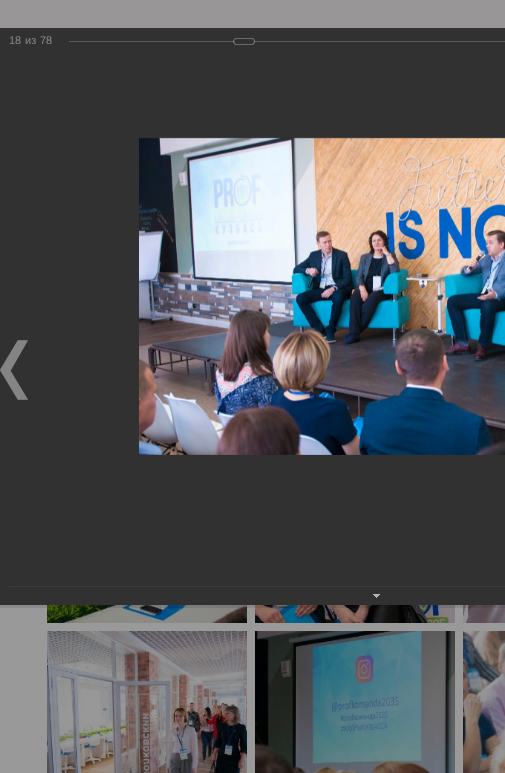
#include "include/core/SkBlurTypes.h"
#include "include/core/SkCanvas.h"
#include "include/core/SkData.h"
#include "include/core/SkFont.h"
#include "include/core/SkFontMgr.h"
#include "include/core/SkImage.h"
#include "include/core/SkMaskFilter.h"
#include "include/core/SkPaint.h"
#include "include/core/SkPathBuilder.h"
#include "include/core/SkTextBlob.h"
#include "include/effects/SkDashPathEffect.h"
#include "include/effects/SkGradientShader.h"
#include "include/utils/SkParsePath.h"

extern sk_sp<SkFontMgr> fontMgr;

void draw(SkCanvas* canvas) {
    SkPaint p;
    p.setAntiAlias(true);
    auto font = [&](const char* family, int weight, float size, bool italic = false) {
        SkFontStyle style(weight, SkFontStyle::kNormal_Width,
            italic ? SkFontStyle::kItalic_Slant : SkFontStyle::kUpright_Slant);
        SkFont result(fontMgr->matchFamilyStyle(family, style), size);
        result.setSubpixel(true);
        return result;
    };
    auto drawPhoto = [&](const char* path, float l, float t, float r, float b) {
        auto image = SkImages::DeferredFromEncodedData(SkData::MakeFromFileName(path));
        canvas->drawImageRect(image, SkRect::MakeLTRB(l, t, r, b), SkSamplingOptions());
    };
    canvas->clear(0xFFFFFFFF);
    drawPhoto("media/1.png", 0, 0, 505, 28);
    p.setColor(0xFF313131);
    canvas->drawRect(SkRect::MakeLTRB(0, 28, 505, 605), p);
    auto font1 = font("Liberation Sans", 400, 11);
    p.setColor(0xFF838383);
    {
        const struct { const char* s; float x, y; } items[] = {
            {"18", 9, 44},
            {"из", 25, 44},
            {"78", 40, 44},
        };
        for (auto [s, x, y] : items) {
            canvas->drawString(s, x, y, font1, p);
        }
    }
    p.setColor(0xFF5A5A5A);
    canvas->drawRect(SkRect::MakeLTRB(69, 41, 505, 42), p);
    drawPhoto("media/2.png", 233, 38, 255, 45);
    drawPhoto("media/3.png", 139, 137, 505, 455);
    p.setColor(0xFF3D3D3D);
    canvas->drawRect(SkRect::MakeLTRB(9, 586, 505, 587), p);
    drawPhoto("media/4.png", 373, 594, 380, 598);
    drawPhoto("media/5.png", 0, 340, 28, 400);
    p.setColor(0xFF999999);
    canvas->drawRect(SkRect::MakeLTRB(0, 608, 505, 773), p);
    p.setColor(0xFF8A8A8A);
    canvas->drawRect(SkRect::MakeLTRB(0, 605, 463, 608), p);
    drawPhoto("media/6.png", 47, 605, 247, 623);
    drawPhoto("media/7.png", 255, 605, 455, 623);
    drawPhoto("media/8.png", 463, 605, 505, 623);
    drawPhoto("media/9.png", 47, 631, 247, 773);
    drawPhoto("media/10.png", 255, 631, 455, 773);
    drawPhoto("media/11.png", 463, 631, 505, 773);
}
